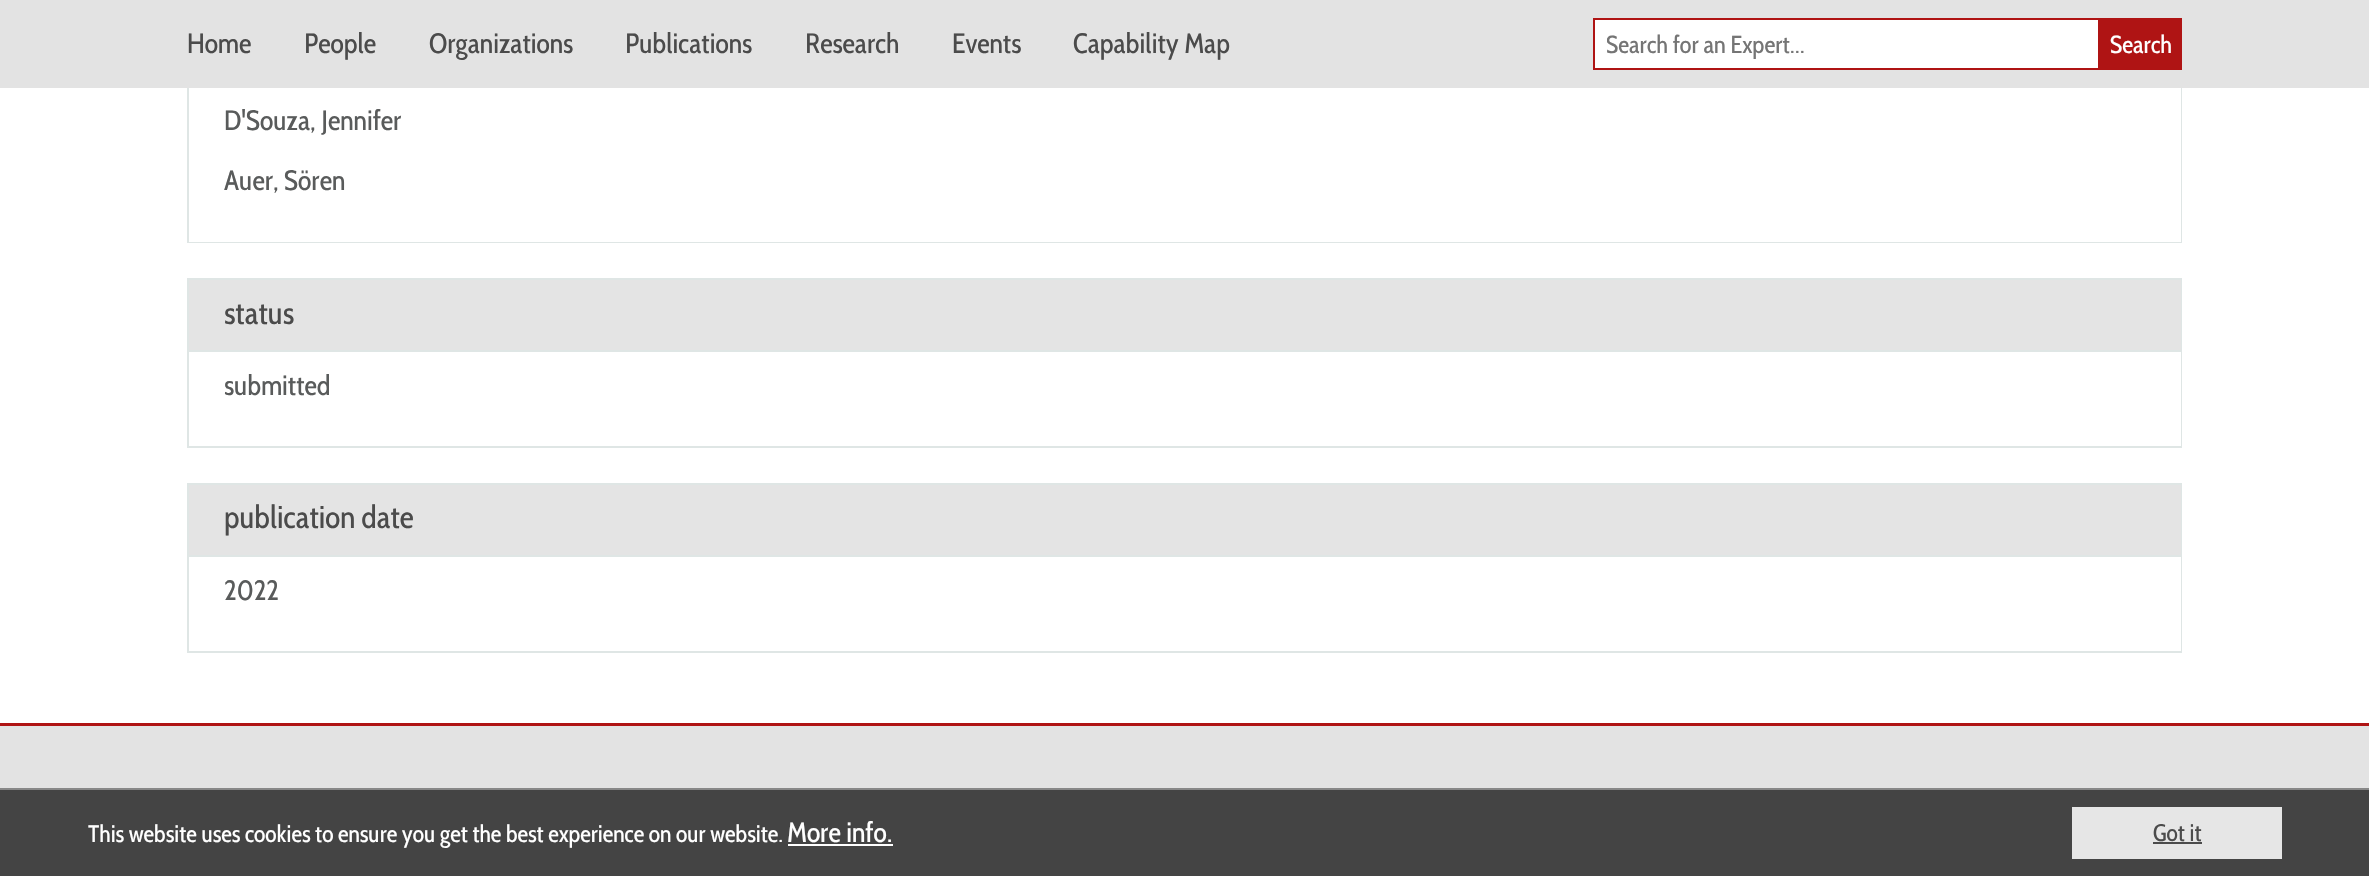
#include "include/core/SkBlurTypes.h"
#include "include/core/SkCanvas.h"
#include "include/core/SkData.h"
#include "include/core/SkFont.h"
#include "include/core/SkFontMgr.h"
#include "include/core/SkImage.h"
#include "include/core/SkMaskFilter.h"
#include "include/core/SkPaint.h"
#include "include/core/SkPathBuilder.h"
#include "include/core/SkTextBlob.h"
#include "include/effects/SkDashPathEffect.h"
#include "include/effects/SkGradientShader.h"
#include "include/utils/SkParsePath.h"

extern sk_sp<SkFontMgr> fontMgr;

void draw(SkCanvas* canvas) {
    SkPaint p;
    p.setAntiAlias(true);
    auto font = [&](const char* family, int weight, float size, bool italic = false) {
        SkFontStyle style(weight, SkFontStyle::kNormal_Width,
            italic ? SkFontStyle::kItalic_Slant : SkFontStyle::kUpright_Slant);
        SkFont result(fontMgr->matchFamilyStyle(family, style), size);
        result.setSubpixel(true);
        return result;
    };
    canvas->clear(0xFFFFFFFF);
    p.setStyle(SkPaint::kStroke_Style);
    p.setStrokeWidth(2);
    p.setColor(0xFFDFE6E5);
    canvas->drawRect(SkRect::MakeLTRB(188, 15, 2181, 242), p);
    p.setStyle(SkPaint::kFill_Style);
    p.setColor(0xFFE3E3E3);
    canvas->drawRect(SkRect::MakeLTRB(0, 0, 2369, 88), p);
    auto font1 = font("Cabin Condensed", 400, 28);
    p.setColor(0xFF4B4B4B);
    {
        const struct { const char* s; float x, y; } items[] = {
            {"Home", 187, 53},
            {"People", 304, 53},
            {"Organizations", 429, 53},
            {"Publications", 625, 53},
            {"Research", 805, 53},
            {"Events", 952, 53},
            {"Capability Map", 1073, 53},
        };
        for (auto [s, x, y] : items) {
            canvas->drawString(s, x, y, font1, p);
        }
    }
    p.setColor(0xFFFFFFFF);
    canvas->drawRect(SkRect::MakeLTRB(1594, 19, 2099, 69), p);
    p.setStyle(SkPaint::kStroke_Style);
    p.setColor(0xFFAF1414);
    canvas->drawRect(SkRect::MakeLTRB(1594, 19, 2099, 69), p);
    canvas->save();
    canvas->clipRect(SkRect::MakeLTRB(1607, 28, 2086, 60));
    auto font2 = font("Cabin Condensed", 400, 24.5f);
    p.setStyle(SkPaint::kFill_Style);
    p.setColor(0xFF757575);
    canvas->drawString("Search for an Expert...", 1606, 53, font2, p);
    canvas->restore();
    p.setColor(0xFFAF1414);
    canvas->drawRect(SkRect::MakeLTRB(2100, 18, 2182, 70), p);
    p.setColor(0xFFFFFFFF);
    canvas->drawString("Search", 2110, 53, font2, p);
    canvas->drawRect(SkRect::MakeLTRB(189, 88, 2181, 242), p);
    p.setColor(0xFF595B5B);
    canvas->drawString("D'Souza, Jennifer", 224, 130, font1, p);
    canvas->drawString("Auer, Sören", 224, 190, font1, p);
    p.setStyle(SkPaint::kStroke_Style);
    p.setColor(0xFFDFE6E5);
    canvas->drawRect(SkRect::MakeLTRB(188, 279, 2181, 447), p);
    p.setStyle(SkPaint::kFill_Style);
    p.setColor(0xFFE4E4E4);
    canvas->drawRect(SkRect::MakeLTRB(189, 280, 2181, 350), p);
    p.setColor(0xFFDFE6E5);
    canvas->drawRect(SkRect::MakeLTRB(189, 350, 2181, 352), p);
    auto font3 = font("Cabin Condensed", 400, 31.5f);
    p.setColor(0xFF4B4B4B);
    canvas->drawString("status", 224, 324, font3, p);
    p.setColor(0xFFFFFFFF);
    canvas->drawRect(SkRect::MakeLTRB(2180, 352, 2181, 446), p);
    p.setColor(0xFF595B5B);
    canvas->drawString("submitted", 224, 395, font1, p);
    p.setStyle(SkPaint::kStroke_Style);
    p.setColor(0xFFDFE6E5);
    canvas->drawRect(SkRect::MakeLTRB(188, 484, 2181, 652), p);
    p.setStyle(SkPaint::kFill_Style);
    p.setColor(0xFFE4E4E4);
    canvas->drawRect(SkRect::MakeLTRB(189, 485, 2181, 555), p);
    p.setColor(0xFFDFE6E5);
    canvas->drawRect(SkRect::MakeLTRB(189, 555, 2181, 557), p);
    p.setColor(0xFF4B4B4B);
    canvas->drawString("publication date", 224, 528, font3, p);
    p.setColor(0xFFFFFFFF);
    canvas->drawRect(SkRect::MakeLTRB(2180, 557, 2181, 651), p);
    p.setColor(0xFF595B5B);
    canvas->drawString("2022", 224, 600, font1, p);
    {
        const struct { float l, t, r, b; SkColor color; } items[] = {
            {0, 723, 2369, 726, 0xFFAF1414},
            {0, 726, 2369, 788, 0xFFE3E3E3},
            {0, 790, 2369, 876, 0xFF444444},
            {0, 788, 2369, 790, 0xFF888888},
        };
        for (auto [l, t, r, b, color] : items) {
            p.setColor(color);
            canvas->drawRect(SkRect::MakeLTRB(l, t, r, b), p);
        }
    }
    auto font4 = font("Cabin Condensed", 400, 23.8f);
    p.setColor(0xFFFFFFFF);
    canvas->drawString("This website uses cookies to ensure you get the best experience on our website.", 88, 842, font4, p);
    canvas->drawString("More info.", 787, 842, font1, p);
    canvas->drawRect(SkRect::MakeLTRB(788, 844, 893, 846), p);
    p.setColor(0xFFE6E6E6);
    canvas->drawRect(SkRect::MakeLTRB(2072, 807, 2282, 859), p);
    p.setColor(0xFF4B4B4B);
    canvas->drawString("Got it", 2153, 841, font4, p);
    canvas->drawRect(SkRect::MakeLTRB(2153, 842, 2202, 844), p);
}
